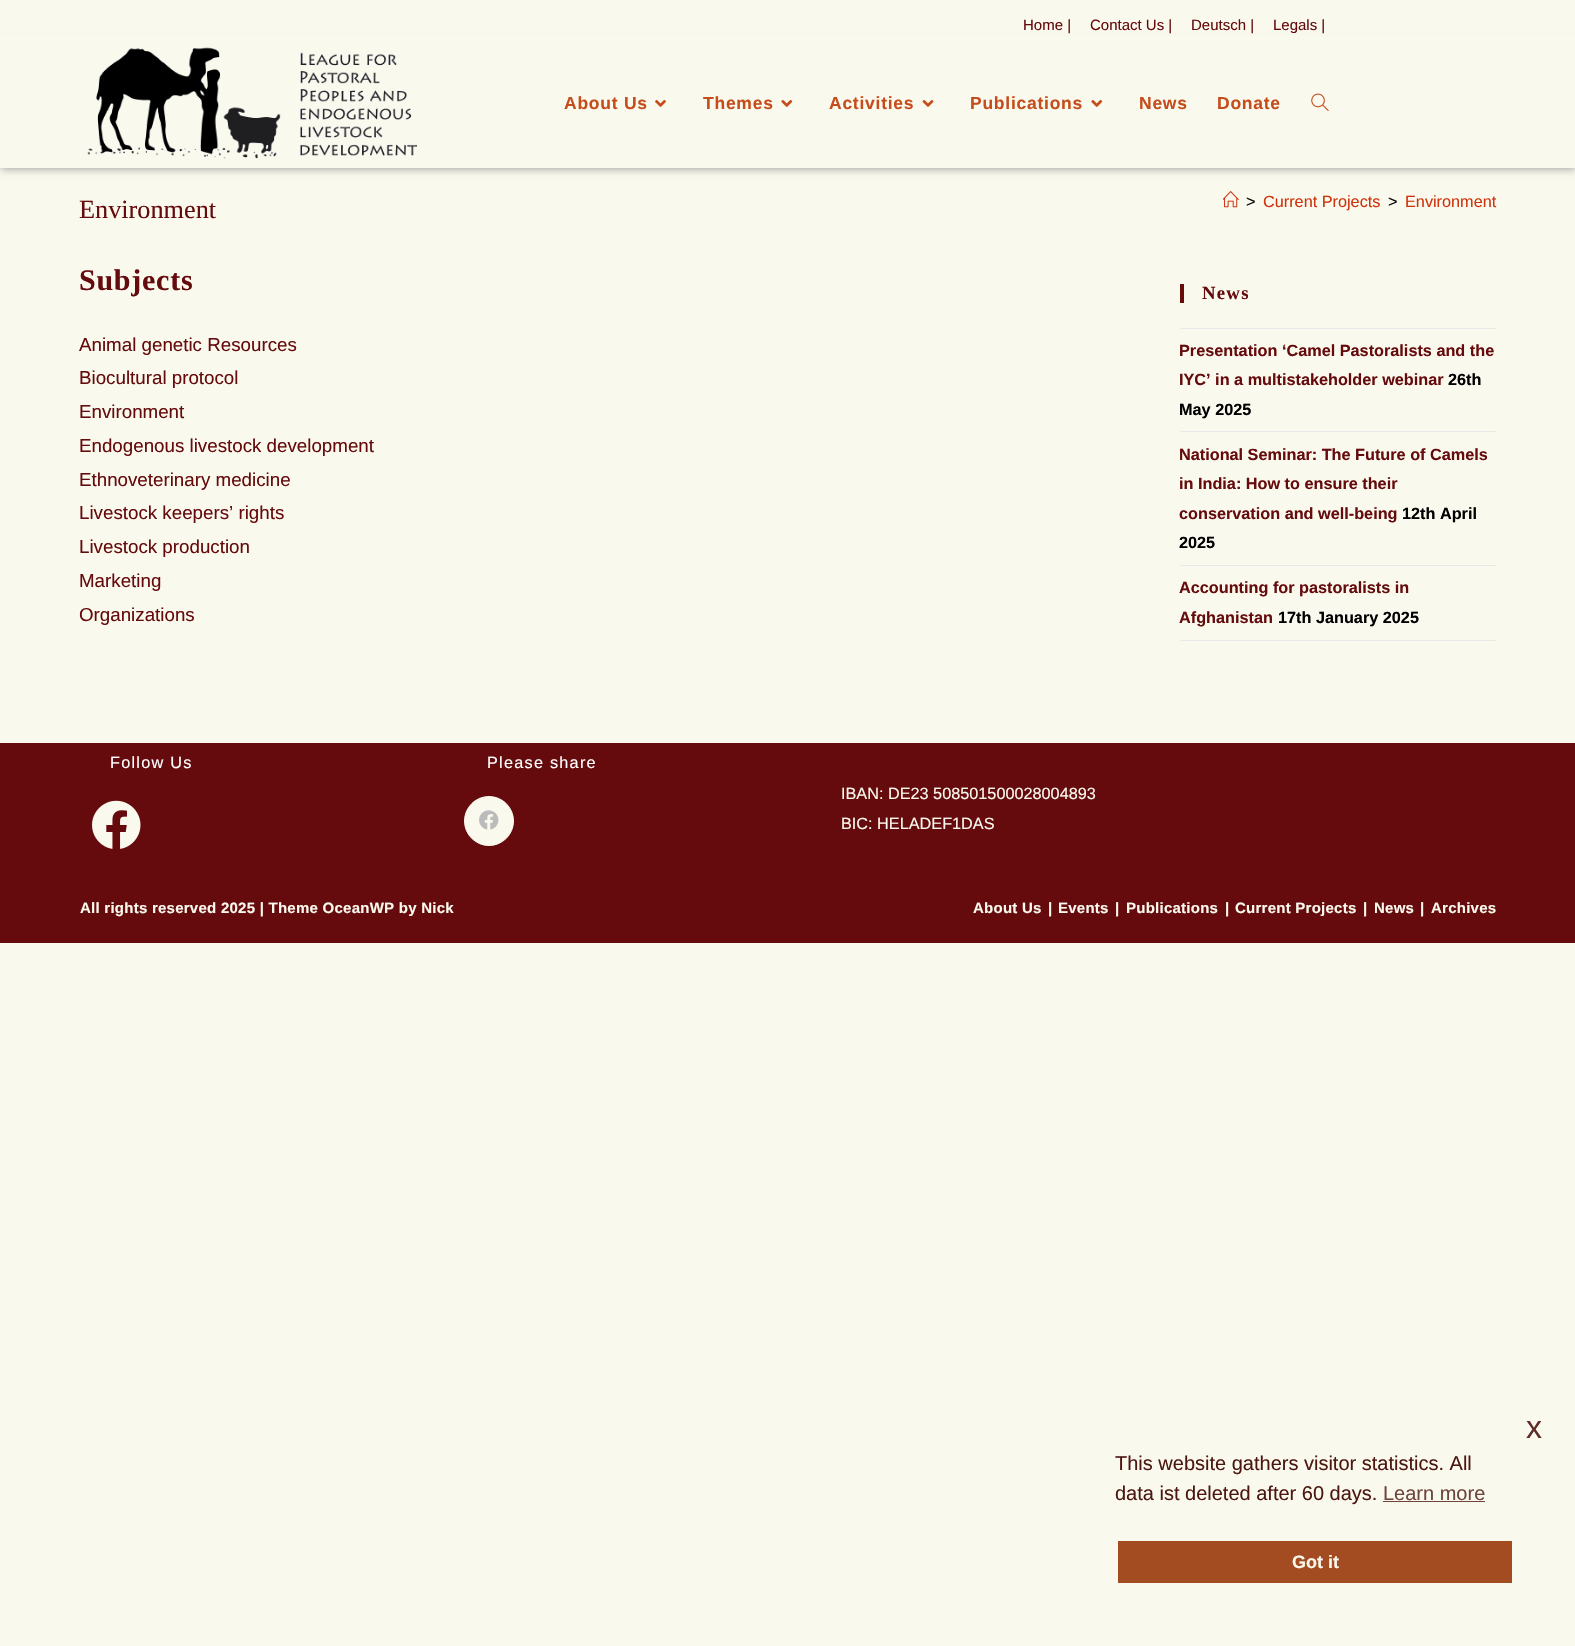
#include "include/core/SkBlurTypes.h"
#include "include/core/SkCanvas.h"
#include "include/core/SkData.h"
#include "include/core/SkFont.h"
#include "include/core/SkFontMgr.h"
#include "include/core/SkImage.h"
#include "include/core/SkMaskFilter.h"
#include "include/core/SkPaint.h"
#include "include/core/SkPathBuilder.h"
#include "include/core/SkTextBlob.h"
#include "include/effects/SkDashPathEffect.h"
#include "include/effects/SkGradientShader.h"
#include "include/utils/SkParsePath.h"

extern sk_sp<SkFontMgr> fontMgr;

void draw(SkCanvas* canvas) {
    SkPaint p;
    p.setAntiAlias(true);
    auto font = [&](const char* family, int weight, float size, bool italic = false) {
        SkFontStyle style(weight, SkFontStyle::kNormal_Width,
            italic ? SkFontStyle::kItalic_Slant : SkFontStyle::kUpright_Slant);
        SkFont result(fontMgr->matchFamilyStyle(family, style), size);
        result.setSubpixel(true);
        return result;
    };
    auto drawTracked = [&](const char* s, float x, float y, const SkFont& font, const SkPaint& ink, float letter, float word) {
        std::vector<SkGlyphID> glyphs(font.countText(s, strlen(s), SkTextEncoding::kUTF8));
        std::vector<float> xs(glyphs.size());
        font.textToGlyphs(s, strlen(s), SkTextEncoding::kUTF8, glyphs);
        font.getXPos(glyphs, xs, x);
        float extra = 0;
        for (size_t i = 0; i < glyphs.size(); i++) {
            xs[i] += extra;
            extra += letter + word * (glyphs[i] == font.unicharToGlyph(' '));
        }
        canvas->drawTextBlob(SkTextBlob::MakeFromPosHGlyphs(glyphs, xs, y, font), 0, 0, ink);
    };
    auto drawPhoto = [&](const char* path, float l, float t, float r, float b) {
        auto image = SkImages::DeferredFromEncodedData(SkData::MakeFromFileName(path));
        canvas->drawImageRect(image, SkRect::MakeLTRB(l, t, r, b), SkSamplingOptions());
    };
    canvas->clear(0xFFFAF9ED);
    p.setColor(0xFFA0A0A0);
    p.setMaskFilter(SkMaskFilter::MakeBlur(kNormal_SkBlurStyle, 4));
    canvas->drawRect(SkRect::MakeLTRB(1, 43, 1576, 169), p);
    p.setMaskFilter(nullptr);
    auto font1 = font("Liberation Sans", 400, 15);
    p.setColor(0xFF660B0D);
    {
        const struct { const char* s; float x, y; } items[] = {
            {"Home |", 1023, 30},
            {"Contact Us |", 1090, 30},
            {"Deutsch |", 1191, 30},
            {"Legals |", 1273, 30},
        };
        for (auto [s, x, y] : items) {
            canvas->drawString(s, x, y, font1, p);
        }
    }
    p.setColor(0xFFFAF9ED);
    canvas->drawRect(SkRect::MakeLTRB(0, 35, 1575, 168), p);
    drawPhoto("media/1.png", 87, 47, 417, 159);
    auto font2 = font("Liberation Sans", 700, 17.5f);
    p.setColor(0xFFC54D1C);
    drawTracked("About Us", 564, 109, font2, p, 0.75f, 0);
    drawPhoto("media/2.png", 655, 100, 666, 107);
    drawTracked("Themes", 703, 109, font2, p, 0.75f, 0);
    drawPhoto("media/3.png", 781, 100, 793, 107);
    drawTracked("Activities", 829, 109, font2, p, 0.75f, 0);
    drawPhoto("media/4.png", 922, 100, 934, 107);
    drawTracked("Publications", 970, 109, font2, p, 0.75f, 0);
    drawPhoto("media/3.png", 1091, 100, 1103, 107);
    drawTracked("News", 1139, 109, font2, p, 0.75f, 0);
    drawTracked("Donate", 1217, 109, font2, p, 0.75f, 0);
    drawPhoto("media/5.png", 1311, 93, 1329, 111);
    auto font3 = font("Liberation Serif", 400, 26.25f);
    p.setColor(0xFF660B0D);
    canvas->drawString("Environment", 79, 218, font3, p);
    drawPhoto("media/6.png", 1223, 191, 1239, 208);
    auto font4 = font("Liberation Sans", 400, 16.25f);
    p.setColor(0xFF0A0A0A);
    canvas->drawString(">", 1246, 207, font4, p);
    p.setColor(0xFFCE330C);
    canvas->drawString("Current Projects", 1263, 207, font4, p);
    p.setColor(0xFF0A0A0A);
    canvas->drawString(">", 1388, 207, font4, p);
    p.setColor(0xFFCE330C);
    canvas->drawString("Environment", 1405, 207, font4, p);
    auto font5 = font("Liberation Serif", 700, 30);
    p.setColor(0xFF660B0D);
    drawTracked("Subjects", 79, 290, font5, p, 0.75f, 0);
    auto font6 = font("Liberation Sans", 400, 18.75f);
    {
        const struct { const char* s; float x, y; } items[] = {
            {"Animal genetic Resources", 79, 351},
            {"Biocultural protocol", 79, 384},
            {"Environment", 79, 418},
            {"Endogenous livestock development", 79, 452},
            {"Ethnoveterinary medicine", 79, 486},
            {"Livestock keepers’ rights", 79, 519},
            {"Livestock production", 79, 553},
            {"Marketing", 79, 587},
            {"Organizations", 79, 621},
        };
        for (auto [s, x, y] : items) {
            canvas->drawString(s, x, y, font6, p);
        }
    }
    p.setColor(0xFF660D0B);
    canvas->drawRect(SkRect::MakeLTRB(1180, 284, 1184, 303), p);
    auto font7 = font("Liberation Serif", 700, 18.75f);
    p.setColor(0xFF660B0D);
    drawTracked("News", 1202, 299, font7, p, 1.25f, 0);
    p.setColor(0xFFE9E9E9);
    canvas->drawRect(SkRect::MakeLTRB(1180, 328, 1496, 329), p);
    canvas->drawRect(SkRect::MakeLTRB(1180, 431, 1496, 432), p);
    auto font8 = font("Liberation Sans", 700, 16.25f);
    p.setColor(0xFF660B0D);
    canvas->drawString("Presentation ‘Camel Pastoralists and the", 1179, 356, font8, p);
    canvas->drawString("IYC’ in a multistakeholder webinar", 1179, 385, font8, p);
    p.setColor(0xFF000000);
    canvas->drawString("26th", 1448, 385, font8, p);
    canvas->drawString("May 2025", 1179, 415, font8, p);
    p.setColor(0xFFE9E9E9);
    canvas->drawRect(SkRect::MakeLTRB(1180, 565, 1496, 566), p);
    p.setColor(0xFF660B0D);
    {
        const struct { const char* s; float x, y; } items[] = {
            {"National Seminar: The Future of Camels", 1179, 460},
            {"in India: How to ensure their", 1179, 489},
            {"conservation and well-being", 1179, 519},
        };
        for (auto [s, x, y] : items) {
            canvas->drawString(s, x, y, font8, p);
        }
    }
    p.setColor(0xFF000000);
    canvas->drawString("12th April", 1402, 519, font8, p);
    canvas->drawString("2025", 1179, 548, font8, p);
    p.setColor(0xFFE9E9E9);
    canvas->drawRect(SkRect::MakeLTRB(1180, 640, 1496, 641), p);
    p.setColor(0xFF660B0D);
    canvas->drawString("Accounting for pastoralists in", 1179, 593, font8, p);
    canvas->drawString("Afghanistan", 1179, 623, font8, p);
    p.setColor(0xFF000000);
    canvas->drawString("17th January 2025", 1278, 623, font8, p);
    p.setColor(0xFF660B0D);
    canvas->drawRect(SkRect::MakeLTRB(0, 743, 1575, 943), p);
    p.setColor(0xFFFFFFFF);
    drawTracked("Follow Us", 110, 768, font4, p, 1.25f, 0);
    drawPhoto("media/7.png", 92, 800, 141, 849);
    drawTracked("Please share", 487, 768, font4, p, 1.25f, 0);
    p.setColor(0xFFFAF9ED);
    canvas->drawCircle(489, 821, 24.5f, p);
    p.setStyle(SkPaint::kStroke_Style);
    p.setStrokeWidth(1);
    canvas->drawCircle(489, 821, 24.5f, p);
    drawPhoto("media/8.png", 479, 810, 499, 830);
    p.setStyle(SkPaint::kFill_Style);
    canvas->drawString("IBAN: DE23 508501500028004893", 841, 799, font4, p);
    canvas->drawString("BIC: HELADEF1DAS", 841, 829, font4, p);
    auto font9 = font("Liberation Sans", 700, 15);
    {
        const struct { const char* s; float x, y; } items[] = {
            {"All rights reserved 2025 | Theme OceanWP by Nick", 80, 913},
            {"About Us", 973, 913},
            {"|", 1048, 913},
            {"Events", 1058, 913},
            {"|", 1115, 913},
            {"Publications", 1126, 913},
            {"|", 1225, 913},
            {"Current Projects", 1235, 913},
            {"|", 1363, 913},
            {"News", 1374, 913},
            {"|", 1420, 913},
            {"Archives", 1431, 913},
        };
        for (auto [s, x, y] : items) {
            drawTracked(s, x, y, font9, p, 0.25f, 0);
        }
    }
    auto font10 = font("Liberation Sans", 400, 32);
    p.setColor(0xFF5E2E27);
    canvas->drawString("x", 1526, 1438, font10, p);
    auto font11 = font("Liberation Sans", 400, 20);
    p.setColor(0xFF4D1711);
    canvas->drawString("This website gathers visitor statistics. All", 1115, 1470, font11, p);
    canvas->drawString("data ist deleted after 60 days.", 1115, 1500, font11, p);
    p.setColor(0xFF6F443D);
    canvas->drawString("Learn more", 1383, 1500, font11, p);
    canvas->drawRect(SkRect::MakeLTRB(1383, 1501, 1485, 1502), p);
    p.setColor(0xFFA34C22);
    canvas->drawRect(SkRect::MakeLTRB(1118, 1541, 1512, 1583), p);
    auto font12 = font("Liberation Sans", 700, 18);
    p.setColor(0xFFFAF9ED);
    canvas->drawString("Got it", 1292, 1568, font12, p);
}
